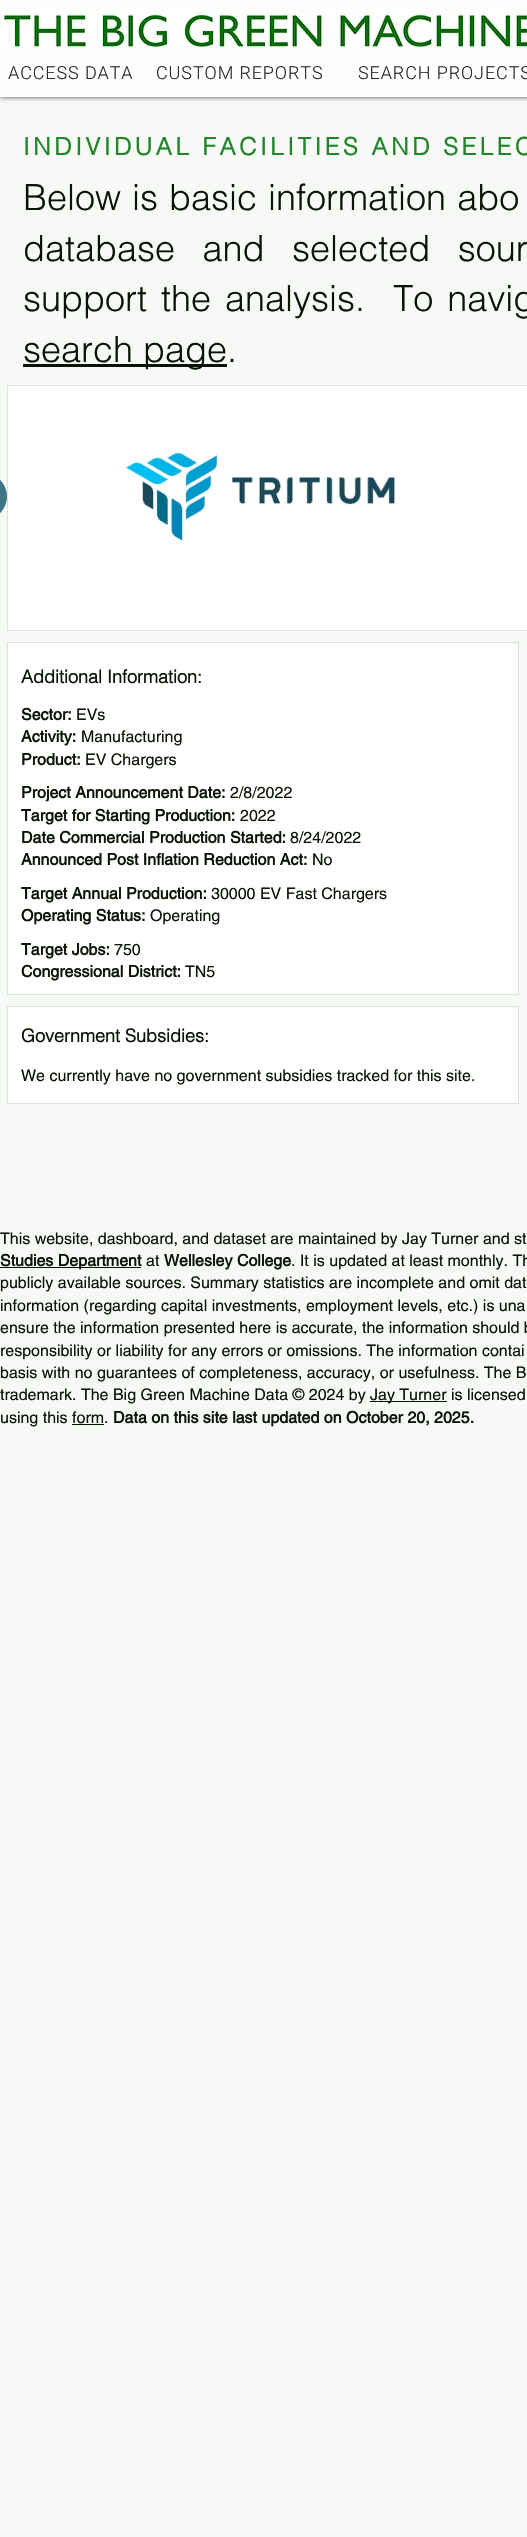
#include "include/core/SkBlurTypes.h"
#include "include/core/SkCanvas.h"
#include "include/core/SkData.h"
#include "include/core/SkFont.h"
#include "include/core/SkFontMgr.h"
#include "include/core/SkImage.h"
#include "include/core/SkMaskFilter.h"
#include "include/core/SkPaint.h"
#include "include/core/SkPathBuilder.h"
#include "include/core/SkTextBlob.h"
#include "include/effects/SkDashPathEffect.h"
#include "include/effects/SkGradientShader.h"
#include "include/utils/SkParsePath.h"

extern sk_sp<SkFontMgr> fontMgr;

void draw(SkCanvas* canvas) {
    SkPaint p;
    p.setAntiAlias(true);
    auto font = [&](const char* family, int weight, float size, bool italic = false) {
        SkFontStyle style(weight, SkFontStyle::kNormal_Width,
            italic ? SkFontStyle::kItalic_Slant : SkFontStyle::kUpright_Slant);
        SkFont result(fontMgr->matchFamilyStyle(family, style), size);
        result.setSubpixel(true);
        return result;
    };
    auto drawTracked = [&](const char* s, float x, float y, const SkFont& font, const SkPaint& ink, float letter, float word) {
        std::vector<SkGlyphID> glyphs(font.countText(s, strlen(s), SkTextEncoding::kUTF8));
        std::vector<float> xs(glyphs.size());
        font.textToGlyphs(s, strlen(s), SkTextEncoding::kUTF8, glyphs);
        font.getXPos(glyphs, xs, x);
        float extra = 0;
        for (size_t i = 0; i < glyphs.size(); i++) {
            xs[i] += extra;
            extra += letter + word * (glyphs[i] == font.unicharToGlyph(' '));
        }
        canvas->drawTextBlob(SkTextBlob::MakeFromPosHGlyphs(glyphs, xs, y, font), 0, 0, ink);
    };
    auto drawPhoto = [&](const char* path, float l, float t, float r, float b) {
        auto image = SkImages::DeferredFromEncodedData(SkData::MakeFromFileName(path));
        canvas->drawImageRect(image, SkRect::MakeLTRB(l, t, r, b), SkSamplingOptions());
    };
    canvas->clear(0xFFF6F9F5);
    p.setColor(0xB3000000);
    p.setMaskFilter(SkMaskFilter::MakeBlur(kNormal_SkBlurStyle, 2.5f));
    canvas->drawRect(SkRect::MakeLTRB(0, 0, 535, 97), p);
    p.setMaskFilter(nullptr);
    p.setColor(0xFFFEFEFE);
    canvas->drawRect(SkRect::MakeLTRB(0, 0, 527, 97), p);
    drawPhoto("media/1.png", 0, 9, 527, 49);
    auto font1 = font("Heebo", 300, 18);
    p.setColor(0xFF282626);
    {
        const struct { const char* s; float x, y; } items[] = {
            {"ACCESS DATA", 8, 79},
            {"CUSTOM REPORTS", 156, 79},
            {"SEARCH PROJECTS", 358, 79},
        };
        for (auto [s, x, y] : items) {
            drawTracked(s, x, y, font1, p, 0.9f, 0);
        }
    }
    auto font2 = font("helvetica", 700, 24);
    p.setColor(0xFF23852A);
    drawTracked("INDIVIDUAL FACILITIES AND SELEC", 23, 155, font2, p, 3.6f, 0);
    auto font3 = font("helvetica", 300, 36);
    p.setColor(0xFF091405);
    drawTracked("Below is basic information abo", 23, 210, font3, p, 0, 1);
    drawTracked("database and selected sour", 23, 261, font3, p, 0, 17.5f);
    drawTracked("support the analysis.  To navig", 23, 311, font3, p, 0, 4);
    canvas->drawRect(SkRect::MakeLTRB(23, 364, 227, 367), p);
    canvas->drawString("search page.", 23, 362, font3, p);
    p.setColor(0xFF417586);
    canvas->drawPath(SkPathBuilder().moveTo(0, 473).lineTo(-16.5f, 473).cubicTo(-3.5f, 473, 7, 483.5f, 7, 496.5f).cubicTo(7, 509.5f, -3.5f, 520, -16.5f, 520).lineTo(0, 520).close().detach(), p);
    p.setColor(0xFFFFFFFF);
    canvas->drawRect(SkRect::MakeLTRB(7.5f, 385.5f, 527.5f, 630.5f), p);
    p.setStyle(SkPaint::kStroke_Style);
    p.setStrokeWidth(1);
    p.setColor(0xFFD3E7D4);
    canvas->drawRect(SkRect::MakeLTRB(7.5f, 385.5f, 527.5f, 630.5f), p);
    drawPhoto("media/2.png", 122, 451, 395, 542);
    p.setStyle(SkPaint::kFill_Style);
    p.setColor(0xFFFFFFFF);
    canvas->drawRect(SkRect::MakeLTRB(7.5f, 642.5f, 518.5f, 994.5f), p);
    p.setStyle(SkPaint::kStroke_Style);
    p.setColor(0xFFD3E7D4);
    canvas->drawRect(SkRect::MakeLTRB(7.5f, 642.5f, 518.5f, 994.5f), p);
    auto font4 = font("helvetica", 700, 18);
    p.setStyle(SkPaint::kFill_Style);
    p.setColor(0xFF091405);
    canvas->drawString("Additional Information:", 21, 683, font4, p);
    auto font5 = font("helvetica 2", 700, 16);
    canvas->drawString("Sector:", 21, 720, font5, p);
    auto font6 = font("helvetica", 400, 16);
    canvas->drawString("EVs", 76, 720, font6, p);
    canvas->drawString("Activity:", 21, 742, font5, p);
    canvas->drawString("Manufacturing", 81, 742, font6, p);
    canvas->drawString("Product:", 21, 765, font5, p);
    canvas->drawString("EV Chargers", 85, 765, font6, p);
    canvas->drawString("Project Announcement Date:", 21, 798, font5, p);
    canvas->drawString("2/8/2022", 230, 798, font6, p);
    canvas->drawString("Target for Starting Production:", 21, 821, font5, p);
    canvas->drawString("2022", 240, 821, font6, p);
    canvas->drawString("Date Commercial Production Started:", 21, 843, font5, p);
    canvas->drawString("8/24/2022", 290, 843, font6, p);
    canvas->drawString("Announced Post Inflation Reduction Act:", 21, 865, font5, p);
    canvas->drawString("No", 312, 865, font6, p);
    canvas->drawString("Target Annual Production:", 21, 899, font5, p);
    canvas->drawString("30000 EV Fast Chargers", 211, 899, font6, p);
    canvas->drawString("Operating Status:", 21, 921, font5, p);
    canvas->drawString("Operating", 150, 921, font6, p);
    canvas->drawString("Target Jobs:", 21, 955, font5, p);
    canvas->drawString("750", 114, 955, font6, p);
    canvas->drawString("Congressional District:", 21, 977, font5, p);
    canvas->drawString("TN5", 185, 977, font6, p);
    p.setColor(0xFFFFFFFF);
    canvas->drawRect(SkRect::MakeLTRB(7.5f, 1006.5f, 518.5f, 1103.5f), p);
    p.setStyle(SkPaint::kStroke_Style);
    p.setColor(0xFFD3E7D4);
    canvas->drawRect(SkRect::MakeLTRB(7.5f, 1006.5f, 518.5f, 1103.5f), p);
    p.setStyle(SkPaint::kFill_Style);
    p.setColor(0xFF091405);
    canvas->drawString("Government Subsidies:", 21, 1042, font4, p);
    canvas->drawString("We currently have no government subsidies tracked for this site.", 21, 1081, font6, p);
    canvas->drawString("This website, dashboard, and dataset are maintained by Jay Turner and st", 0, 1244, font6, p);
    canvas->drawRect(SkRect::MakeLTRB(0, 1267, 141, 1268), p);
    canvas->drawString("Studies Department", 0, 1266, font5, p);
    canvas->drawString("at", 146, 1266, font6, p);
    canvas->drawString("Wellesley College", 164, 1266, font5, p);
    {
        const struct { const char* s; float x, y; } items[] = {
            {". It is updated at least monthly. Th", 291, 1266},
            {"publicly available sources. Summary statistics are incomplete and omit dat", 0, 1288},
            {"information (regarding capital investments, employment levels, etc.) is una", 0, 1311},
            {"ensure the information presented here is accurate, the information should b", 0, 1333},
            {"responsibility or liability for any errors or omissions. The information contai", 0, 1356},
            {"basis with no guarantees of completeness, accuracy, or usefulness. The B", 0, 1378},
            {"trademark. The Big Green Machine Data © 2024 by", 0, 1400},
        };
        for (auto [s, x, y] : items) {
            canvas->drawString(s, x, y, font6, p);
        }
    }
    canvas->drawRect(SkRect::MakeLTRB(370, 1401, 447, 1402), p);
    canvas->drawString("Jay Turner is licensed", 370, 1400, font6, p);
    canvas->drawString("using this form.", 0, 1423, font6, p);
    canvas->drawRect(SkRect::MakeLTRB(72, 1424, 104, 1425), p);
    canvas->drawString("Data on this site last updated on October 20, 2025.", 113, 1423, font5, p);
}
